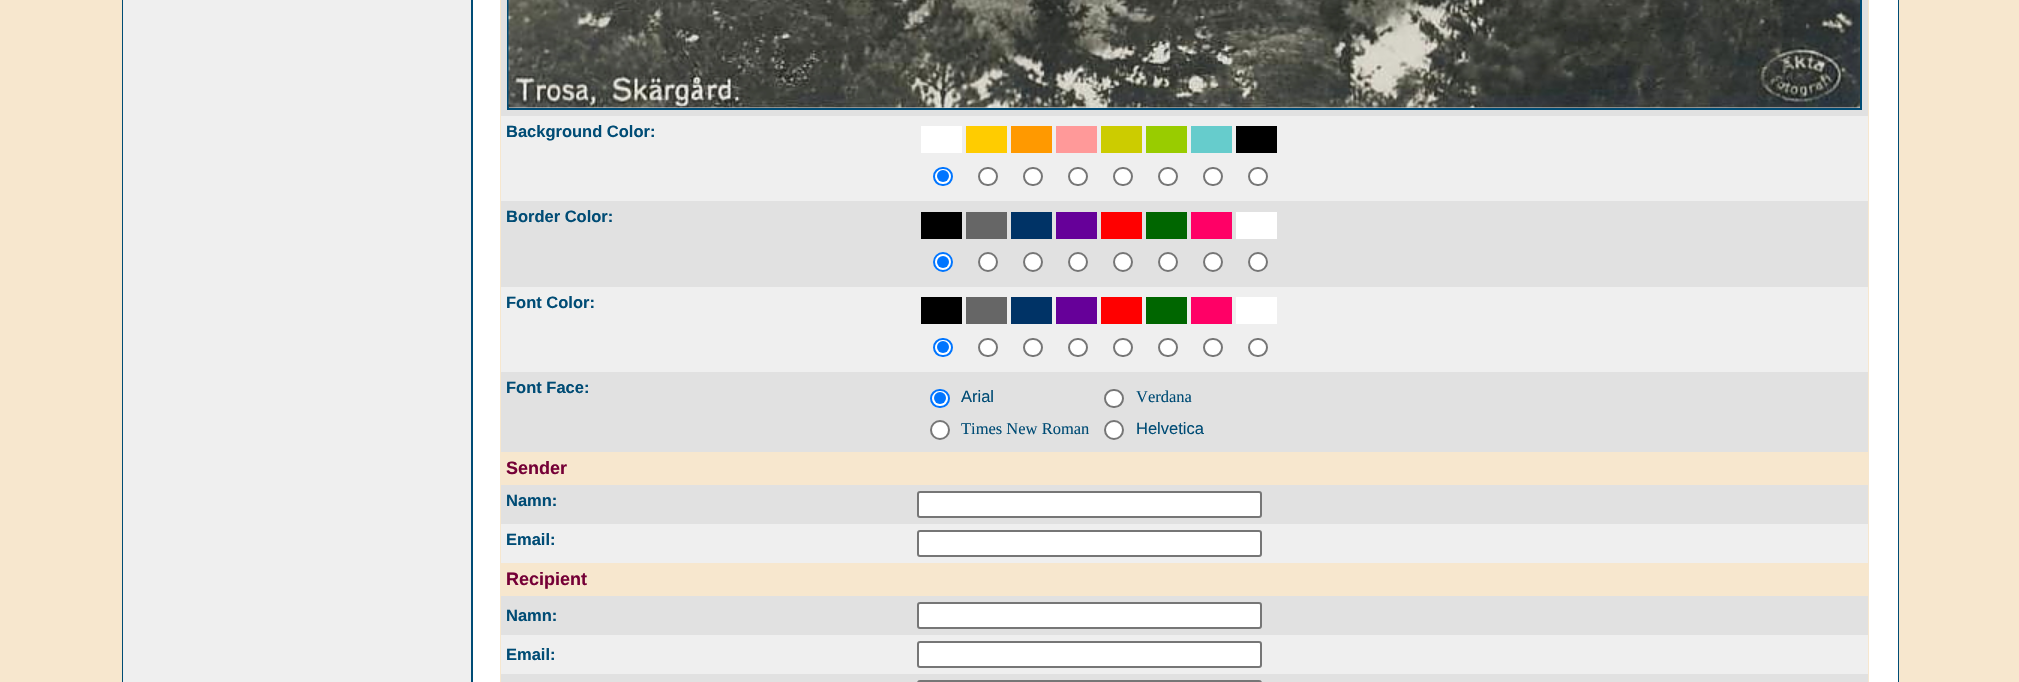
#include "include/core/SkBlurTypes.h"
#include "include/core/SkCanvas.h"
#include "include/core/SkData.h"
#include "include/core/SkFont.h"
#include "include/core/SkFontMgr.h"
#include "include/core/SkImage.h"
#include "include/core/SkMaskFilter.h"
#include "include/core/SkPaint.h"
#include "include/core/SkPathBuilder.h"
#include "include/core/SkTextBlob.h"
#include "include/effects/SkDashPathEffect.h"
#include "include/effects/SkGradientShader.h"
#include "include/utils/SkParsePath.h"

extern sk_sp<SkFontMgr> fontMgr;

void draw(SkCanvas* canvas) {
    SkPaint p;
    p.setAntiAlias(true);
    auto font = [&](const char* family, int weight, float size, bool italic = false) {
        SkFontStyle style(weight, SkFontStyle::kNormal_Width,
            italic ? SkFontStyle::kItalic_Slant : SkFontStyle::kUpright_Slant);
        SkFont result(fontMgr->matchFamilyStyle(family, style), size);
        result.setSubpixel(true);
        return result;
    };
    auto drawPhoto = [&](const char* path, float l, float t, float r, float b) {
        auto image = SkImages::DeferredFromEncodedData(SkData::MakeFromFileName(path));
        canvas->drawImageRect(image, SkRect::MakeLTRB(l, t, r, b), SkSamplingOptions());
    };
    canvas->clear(0xFFF7E7CE);
    {
        const struct { float l, t, r, b; SkColor color; } items[] = {
            {122, 0, 1899, 682, 0xFF004C75},
            {473, 0, 1898, 682, 0xFFFFFFFF},
            {123, 0, 471, 682, 0xFFEFEFEF},
            {500, 0, 1869, 682, 0xFFF7E7CE},
            {501, 0, 1868, 116, 0xFFE1E1E1},
        };
        for (auto [l, t, r, b, color] : items) {
            p.setColor(color);
            canvas->drawRect(SkRect::MakeLTRB(l, t, r, b), p);
        }
    }
    p.setStyle(SkPaint::kStroke_Style);
    p.setStrokeWidth(2);
    p.setColor(0xFF004C75);
    canvas->drawRect(SkRect::MakeLTRB(508, -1, 1861, 109), p);
    drawPhoto("media/1.png", 508, 0, 1860, 108);
    p.setStyle(SkPaint::kFill_Style);
    p.setColor(0xFFEFEFEF);
    canvas->drawRect(SkRect::MakeLTRB(501, 116, 1868, 201), p);
    auto font1 = font("Liberation Sans", 700, 16.5f);
    p.setColor(0xFF004C75);
    canvas->drawString("Background Color:", 506, 137, font1, p);
    {
        const struct { float l, t, r, b; SkColor color; } items[] = {
            {921, 126, 962, 153, 0xFFFFFFFF},
            {966, 126, 1007, 153, 0xFFFFCC00},
            {1011, 126, 1052, 153, 0xFFFF9900},
            {1056, 126, 1097, 153, 0xFFFF9999},
            {1101, 126, 1142, 153, 0xFFCCCC00},
            {1146, 126, 1187, 153, 0xFF99CC00},
            {1191, 126, 1232, 153, 0xFF66CCCC},
            {1236, 126, 1277, 153, 0xFF000000},
        };
        for (auto [l, t, r, b, color] : items) {
            p.setColor(color);
            canvas->drawRect(SkRect::MakeLTRB(l, t, r, b), p);
        }
    }
    p.setColor(0xFFFFFFFF);
    canvas->drawRoundRect(SkRect::MakeLTRB(934, 168, 952, 185), 8.5f, 8.5f, p);
    p.setStyle(SkPaint::kStroke_Style);
    p.setColor(0xFF0075FF);
    canvas->drawRoundRect(SkRect::MakeLTRB(934, 168, 952, 185), 8.5f, 8.5f, p);
    p.setStyle(SkPaint::kFill_Style);
    canvas->drawCircle(943, 176, 6, p);
    p.setColor(0xFFFFFFFF);
    canvas->drawRoundRect(SkRect::MakeLTRB(979, 168, 997, 185), 8.5f, 8.5f, p);
    p.setStyle(SkPaint::kStroke_Style);
    p.setColor(0xFF767676);
    canvas->drawRoundRect(SkRect::MakeLTRB(979, 168, 997, 185), 8.5f, 8.5f, p);
    p.setStyle(SkPaint::kFill_Style);
    p.setColor(0xFFFFFFFF);
    canvas->drawRoundRect(SkRect::MakeLTRB(1024, 168, 1042, 185), 8.5f, 8.5f, p);
    p.setStyle(SkPaint::kStroke_Style);
    p.setColor(0xFF767676);
    canvas->drawRoundRect(SkRect::MakeLTRB(1024, 168, 1042, 185), 8.5f, 8.5f, p);
    p.setStyle(SkPaint::kFill_Style);
    p.setColor(0xFFFFFFFF);
    canvas->drawRoundRect(SkRect::MakeLTRB(1069, 168, 1087, 185), 8.5f, 8.5f, p);
    p.setStyle(SkPaint::kStroke_Style);
    p.setColor(0xFF767676);
    canvas->drawRoundRect(SkRect::MakeLTRB(1069, 168, 1087, 185), 8.5f, 8.5f, p);
    p.setStyle(SkPaint::kFill_Style);
    p.setColor(0xFFFFFFFF);
    canvas->drawRoundRect(SkRect::MakeLTRB(1114, 168, 1132, 185), 8.5f, 8.5f, p);
    p.setStyle(SkPaint::kStroke_Style);
    p.setColor(0xFF767676);
    canvas->drawRoundRect(SkRect::MakeLTRB(1114, 168, 1132, 185), 8.5f, 8.5f, p);
    p.setStyle(SkPaint::kFill_Style);
    p.setColor(0xFFFFFFFF);
    canvas->drawRoundRect(SkRect::MakeLTRB(1159, 168, 1177, 185), 8.5f, 8.5f, p);
    p.setStyle(SkPaint::kStroke_Style);
    p.setColor(0xFF767676);
    canvas->drawRoundRect(SkRect::MakeLTRB(1159, 168, 1177, 185), 8.5f, 8.5f, p);
    p.setStyle(SkPaint::kFill_Style);
    p.setColor(0xFFFFFFFF);
    canvas->drawRoundRect(SkRect::MakeLTRB(1204, 168, 1222, 185), 8.5f, 8.5f, p);
    p.setStyle(SkPaint::kStroke_Style);
    p.setColor(0xFF767676);
    canvas->drawRoundRect(SkRect::MakeLTRB(1204, 168, 1222, 185), 8.5f, 8.5f, p);
    p.setStyle(SkPaint::kFill_Style);
    p.setColor(0xFFFFFFFF);
    canvas->drawRoundRect(SkRect::MakeLTRB(1249, 168, 1267, 185), 8.5f, 8.5f, p);
    p.setStyle(SkPaint::kStroke_Style);
    p.setColor(0xFF767676);
    canvas->drawRoundRect(SkRect::MakeLTRB(1249, 168, 1267, 185), 8.5f, 8.5f, p);
    p.setStyle(SkPaint::kFill_Style);
    p.setColor(0xFFE1E1E1);
    canvas->drawRect(SkRect::MakeLTRB(501, 201, 1868, 287), p);
    p.setColor(0xFF004C75);
    canvas->drawString("Border Color:", 506, 222, font1, p);
    {
        const struct { float l, t, r, b; SkColor color; } items[] = {
            {921, 212, 962, 239, 0xFF000000},
            {966, 212, 1007, 239, 0xFF666666},
            {1011, 212, 1052, 239, 0xFF003366},
            {1056, 212, 1097, 239, 0xFF660099},
            {1101, 212, 1142, 239, 0xFFFF0000},
            {1146, 212, 1187, 239, 0xFF006600},
            {1191, 212, 1232, 239, 0xFFFF0066},
            {1236, 212, 1277, 239, 0xFFFFFFFF},
        };
        for (auto [l, t, r, b, color] : items) {
            p.setColor(color);
            canvas->drawRect(SkRect::MakeLTRB(l, t, r, b), p);
        }
    }
    canvas->drawCircle(943, 262, 9, p);
    p.setStyle(SkPaint::kStroke_Style);
    p.setColor(0xFF0075FF);
    canvas->drawCircle(943, 262, 9, p);
    p.setStyle(SkPaint::kFill_Style);
    canvas->drawCircle(943, 262, 6, p);
    p.setColor(0xFFFFFFFF);
    canvas->drawCircle(988, 262, 9, p);
    p.setStyle(SkPaint::kStroke_Style);
    p.setColor(0xFF767676);
    canvas->drawCircle(988, 262, 9, p);
    p.setStyle(SkPaint::kFill_Style);
    p.setColor(0xFFFFFFFF);
    canvas->drawCircle(1033, 262, 9, p);
    p.setStyle(SkPaint::kStroke_Style);
    p.setColor(0xFF767676);
    canvas->drawCircle(1033, 262, 9, p);
    p.setStyle(SkPaint::kFill_Style);
    p.setColor(0xFFFFFFFF);
    canvas->drawCircle(1078, 262, 9, p);
    p.setStyle(SkPaint::kStroke_Style);
    p.setColor(0xFF767676);
    canvas->drawCircle(1078, 262, 9, p);
    p.setStyle(SkPaint::kFill_Style);
    p.setColor(0xFFFFFFFF);
    canvas->drawCircle(1123, 262, 9, p);
    p.setStyle(SkPaint::kStroke_Style);
    p.setColor(0xFF767676);
    canvas->drawCircle(1123, 262, 9, p);
    p.setStyle(SkPaint::kFill_Style);
    p.setColor(0xFFFFFFFF);
    canvas->drawCircle(1168, 262, 9, p);
    p.setStyle(SkPaint::kStroke_Style);
    p.setColor(0xFF767676);
    canvas->drawCircle(1168, 262, 9, p);
    p.setStyle(SkPaint::kFill_Style);
    p.setColor(0xFFFFFFFF);
    canvas->drawCircle(1213, 262, 9, p);
    p.setStyle(SkPaint::kStroke_Style);
    p.setColor(0xFF767676);
    canvas->drawCircle(1213, 262, 9, p);
    p.setStyle(SkPaint::kFill_Style);
    p.setColor(0xFFFFFFFF);
    canvas->drawCircle(1258, 262, 9, p);
    p.setStyle(SkPaint::kStroke_Style);
    p.setColor(0xFF767676);
    canvas->drawCircle(1258, 262, 9, p);
    p.setStyle(SkPaint::kFill_Style);
    p.setColor(0xFFEFEFEF);
    canvas->drawRect(SkRect::MakeLTRB(501, 287, 1868, 372), p);
    p.setColor(0xFF004C75);
    canvas->drawString("Font Color:", 506, 308, font1, p);
    {
        const struct { float l, t, r, b; SkColor color; } items[] = {
            {921, 297, 962, 324, 0xFF000000},
            {966, 297, 1007, 324, 0xFF666666},
            {1011, 297, 1052, 324, 0xFF003366},
            {1056, 297, 1097, 324, 0xFF660099},
            {1101, 297, 1142, 324, 0xFFFF0000},
            {1146, 297, 1187, 324, 0xFF006600},
            {1191, 297, 1232, 324, 0xFFFF0066},
            {1236, 297, 1277, 324, 0xFFFFFFFF},
        };
        for (auto [l, t, r, b, color] : items) {
            p.setColor(color);
            canvas->drawRect(SkRect::MakeLTRB(l, t, r, b), p);
        }
    }
    canvas->drawRoundRect(SkRect::MakeLTRB(934, 339, 952, 356), 8.5f, 8.5f, p);
    p.setStyle(SkPaint::kStroke_Style);
    p.setColor(0xFF0075FF);
    canvas->drawRoundRect(SkRect::MakeLTRB(934, 339, 952, 356), 8.5f, 8.5f, p);
    p.setStyle(SkPaint::kFill_Style);
    canvas->drawCircle(943, 347, 6, p);
    p.setColor(0xFFFFFFFF);
    canvas->drawRoundRect(SkRect::MakeLTRB(979, 339, 997, 356), 8.5f, 8.5f, p);
    p.setStyle(SkPaint::kStroke_Style);
    p.setColor(0xFF767676);
    canvas->drawRoundRect(SkRect::MakeLTRB(979, 339, 997, 356), 8.5f, 8.5f, p);
    p.setStyle(SkPaint::kFill_Style);
    p.setColor(0xFFFFFFFF);
    canvas->drawRoundRect(SkRect::MakeLTRB(1024, 339, 1042, 356), 8.5f, 8.5f, p);
    p.setStyle(SkPaint::kStroke_Style);
    p.setColor(0xFF767676);
    canvas->drawRoundRect(SkRect::MakeLTRB(1024, 339, 1042, 356), 8.5f, 8.5f, p);
    p.setStyle(SkPaint::kFill_Style);
    p.setColor(0xFFFFFFFF);
    canvas->drawRoundRect(SkRect::MakeLTRB(1069, 339, 1087, 356), 8.5f, 8.5f, p);
    p.setStyle(SkPaint::kStroke_Style);
    p.setColor(0xFF767676);
    canvas->drawRoundRect(SkRect::MakeLTRB(1069, 339, 1087, 356), 8.5f, 8.5f, p);
    p.setStyle(SkPaint::kFill_Style);
    p.setColor(0xFFFFFFFF);
    canvas->drawRoundRect(SkRect::MakeLTRB(1114, 339, 1132, 356), 8.5f, 8.5f, p);
    p.setStyle(SkPaint::kStroke_Style);
    p.setColor(0xFF767676);
    canvas->drawRoundRect(SkRect::MakeLTRB(1114, 339, 1132, 356), 8.5f, 8.5f, p);
    p.setStyle(SkPaint::kFill_Style);
    p.setColor(0xFFFFFFFF);
    canvas->drawRoundRect(SkRect::MakeLTRB(1159, 339, 1177, 356), 8.5f, 8.5f, p);
    p.setStyle(SkPaint::kStroke_Style);
    p.setColor(0xFF767676);
    canvas->drawRoundRect(SkRect::MakeLTRB(1159, 339, 1177, 356), 8.5f, 8.5f, p);
    p.setStyle(SkPaint::kFill_Style);
    p.setColor(0xFFFFFFFF);
    canvas->drawRoundRect(SkRect::MakeLTRB(1204, 339, 1222, 356), 8.5f, 8.5f, p);
    p.setStyle(SkPaint::kStroke_Style);
    p.setColor(0xFF767676);
    canvas->drawRoundRect(SkRect::MakeLTRB(1204, 339, 1222, 356), 8.5f, 8.5f, p);
    p.setStyle(SkPaint::kFill_Style);
    p.setColor(0xFFFFFFFF);
    canvas->drawRoundRect(SkRect::MakeLTRB(1249, 339, 1267, 356), 8.5f, 8.5f, p);
    p.setStyle(SkPaint::kStroke_Style);
    p.setColor(0xFF767676);
    canvas->drawRoundRect(SkRect::MakeLTRB(1249, 339, 1267, 356), 8.5f, 8.5f, p);
    p.setStyle(SkPaint::kFill_Style);
    p.setColor(0xFFE1E1E1);
    canvas->drawRect(SkRect::MakeLTRB(501, 372, 1868, 452), p);
    p.setColor(0xFF004C75);
    canvas->drawString("Font Face:", 506, 393, font1, p);
    p.setColor(0xFFFFFFFF);
    canvas->drawRoundRect(SkRect::MakeLTRB(931, 390, 949, 407), 8.5f, 8.5f, p);
    p.setStyle(SkPaint::kStroke_Style);
    p.setColor(0xFF0075FF);
    canvas->drawRoundRect(SkRect::MakeLTRB(931, 390, 949, 407), 8.5f, 8.5f, p);
    p.setStyle(SkPaint::kFill_Style);
    canvas->drawCircle(940, 398, 6, p);
    auto font2 = font("Liberation Sans", 400, 16.5f);
    p.setColor(0xFF004C75);
    canvas->drawString("Arial", 961, 402, font2, p);
    p.setColor(0xFFFFFFFF);
    canvas->drawRoundRect(SkRect::MakeLTRB(1105, 390, 1123, 407), 8.5f, 8.5f, p);
    p.setStyle(SkPaint::kStroke_Style);
    p.setColor(0xFF767676);
    canvas->drawRoundRect(SkRect::MakeLTRB(1105, 390, 1123, 407), 8.5f, 8.5f, p);
    auto font3 = font("Liberation Serif", 400, 16.5f);
    p.setStyle(SkPaint::kFill_Style);
    p.setColor(0xFF004C75);
    canvas->drawString("Verdana", 1136, 402, font3, p);
    p.setColor(0xFFFFFFFF);
    canvas->drawCircle(940, 430, 9, p);
    p.setStyle(SkPaint::kStroke_Style);
    p.setColor(0xFF767676);
    canvas->drawCircle(940, 430, 9, p);
    p.setStyle(SkPaint::kFill_Style);
    p.setColor(0xFF004C75);
    canvas->drawString("Times New Roman", 961, 434, font3, p);
    p.setColor(0xFFFFFFFF);
    canvas->drawCircle(1114, 430, 9, p);
    p.setStyle(SkPaint::kStroke_Style);
    p.setColor(0xFF767676);
    canvas->drawCircle(1114, 430, 9, p);
    p.setStyle(SkPaint::kFill_Style);
    p.setColor(0xFF004C75);
    canvas->drawString("Helvetica", 1136, 434, font2, p);
    auto font4 = font("Liberation Sans", 700, 18);
    p.setColor(0xFF750036);
    canvas->drawString("Sender", 506, 474, font4, p);
    p.setColor(0xFFE1E1E1);
    canvas->drawRect(SkRect::MakeLTRB(501, 485, 1868, 524), p);
    p.setColor(0xFF004C75);
    canvas->drawString("Namn:", 506, 506, font1, p);
    p.setColor(0xFFFFFFFF);
    canvas->drawRoundRect(SkRect::MakeLTRB(918, 492, 1261, 517), 2, 2, p);
    p.setStyle(SkPaint::kStroke_Style);
    p.setColor(0xFF767676);
    canvas->drawRoundRect(SkRect::MakeLTRB(918, 492, 1261, 517), 2, 2, p);
    p.setStyle(SkPaint::kFill_Style);
    p.setColor(0xFFEFEFEF);
    canvas->drawRect(SkRect::MakeLTRB(501, 524, 1868, 563), p);
    p.setColor(0xFF004C75);
    canvas->drawString("Email:", 506, 545, font1, p);
    p.setColor(0xFFFFFFFF);
    canvas->drawRoundRect(SkRect::MakeLTRB(918, 531, 1261, 556), 2, 2, p);
    p.setStyle(SkPaint::kStroke_Style);
    p.setColor(0xFF767676);
    canvas->drawRoundRect(SkRect::MakeLTRB(918, 531, 1261, 556), 2, 2, p);
    p.setStyle(SkPaint::kFill_Style);
    p.setColor(0xFF750036);
    canvas->drawString("Recipient", 506, 585, font4, p);
    p.setColor(0xFFE1E1E1);
    canvas->drawRect(SkRect::MakeLTRB(501, 596, 1868, 635), p);
    p.setColor(0xFF004C75);
    canvas->drawString("Namn:", 506, 621, font1, p);
    p.setColor(0xFFFFFFFF);
    canvas->drawRoundRect(SkRect::MakeLTRB(918, 603, 1261, 628), 2, 2, p);
    p.setStyle(SkPaint::kStroke_Style);
    p.setColor(0xFF767676);
    canvas->drawRoundRect(SkRect::MakeLTRB(918, 603, 1261, 628), 2, 2, p);
    p.setStyle(SkPaint::kFill_Style);
    p.setColor(0xFFEFEFEF);
    canvas->drawRect(SkRect::MakeLTRB(501, 635, 1868, 674), p);
    p.setColor(0xFF004C75);
    canvas->drawString("Email:", 506, 660, font1, p);
    p.setColor(0xFFFFFFFF);
    canvas->drawRoundRect(SkRect::MakeLTRB(918, 642, 1261, 667), 2, 2, p);
    p.setStyle(SkPaint::kStroke_Style);
    p.setColor(0xFF767676);
    canvas->drawRoundRect(SkRect::MakeLTRB(918, 642, 1261, 667), 2, 2, p);
    p.setStyle(SkPaint::kFill_Style);
    p.setColor(0xFFE1E1E1);
    canvas->drawRect(SkRect::MakeLTRB(501, 674, 1868, 682), p);
    p.setStyle(SkPaint::kStroke_Style);
    p.setColor(0xFF767676);
    canvas->drawRoundRect(SkRect::MakeLTRB(918, 681, 1261, 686), 2, 2, p);
}
